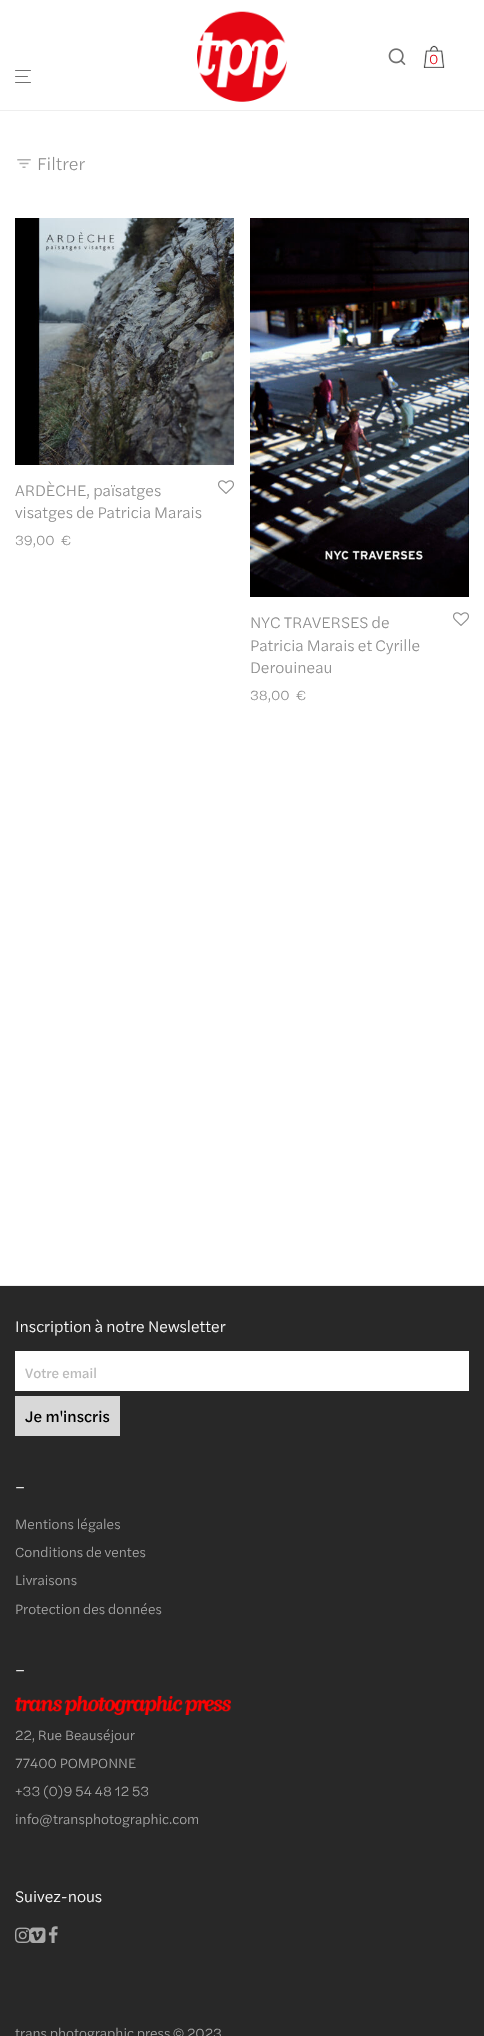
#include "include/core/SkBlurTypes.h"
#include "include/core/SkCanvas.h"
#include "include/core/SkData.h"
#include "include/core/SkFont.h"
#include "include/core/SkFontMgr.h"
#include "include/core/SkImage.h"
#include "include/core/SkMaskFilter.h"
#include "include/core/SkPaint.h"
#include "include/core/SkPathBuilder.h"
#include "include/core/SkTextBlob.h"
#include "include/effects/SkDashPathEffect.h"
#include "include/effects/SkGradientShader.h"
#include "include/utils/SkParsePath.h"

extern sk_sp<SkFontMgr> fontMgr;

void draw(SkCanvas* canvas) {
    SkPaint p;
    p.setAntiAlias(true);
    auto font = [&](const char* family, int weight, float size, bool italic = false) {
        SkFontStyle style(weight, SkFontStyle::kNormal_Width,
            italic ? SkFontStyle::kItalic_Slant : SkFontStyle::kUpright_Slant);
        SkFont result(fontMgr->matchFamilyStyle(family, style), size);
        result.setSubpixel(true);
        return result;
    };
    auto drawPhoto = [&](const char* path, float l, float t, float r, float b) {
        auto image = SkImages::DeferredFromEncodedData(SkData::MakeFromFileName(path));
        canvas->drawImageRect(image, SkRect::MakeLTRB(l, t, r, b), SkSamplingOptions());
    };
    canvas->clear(0xFFFFFFFF);
    p.setColor(0xFFEEEEEE);
    canvas->drawRect(SkRect::MakeLTRB(0, 110, 484, 111), p);
    p.setColor(0xFF707070);
    canvas->drawRoundRect(SkRect::MakeLTRB(15, 70, 31, 71), 0.5f, 0.5f, p);
    canvas->drawRoundRect(SkRect::MakeLTRB(15, 76, 28, 77), 0.5f, 0.5f, p);
    canvas->drawRoundRect(SkRect::MakeLTRB(15, 82, 31, 83), 0.5f, 0.5f, p);
    drawPhoto("media/1.png", 197, 11, 287, 102);
    drawPhoto("media/2.png", 388, 48, 406, 65);
    drawPhoto("media/3.png", 423, 45, 445, 68);
    auto font1 = font("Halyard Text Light", 300, 14);
    p.setColor(0xFFE30613);
    canvas->drawString("0", 429, 64, font1, p);
    drawPhoto("media/4.png", 17, 159, 31, 168);
    auto font2 = font("Halyard Text Light", 300, 18);
    p.setColor(0xFF8C8C8C);
    canvas->drawString("Filtrer", 37, 170, font2, p);
    drawPhoto("media/5.png", 15, 218, 234, 465);
    auto font3 = font("Halyard Text Light", 300, 16);
    canvas->drawString("ARDÈCHE, païsatges", 15, 496, font3, p);
    canvas->drawString("visatges de Patricia Marais", 15, 518, font3, p);
    canvas->drawString("39,00", 15, 545, font1, p);
    canvas->drawString("€", 61, 545, font1, p);
    drawPhoto("media/6.png", 218, 480, 234, 494);
    drawPhoto("media/7.png", 250, 218, 469, 597);
    {
        const struct { const char* s; float x, y; } items[] = {
            {"NYC TRAVERSES de", 250, 628},
            {"Patricia Marais et Cyrille", 250, 651},
            {"Derouineau", 250, 673},
        };
        for (auto [s, x, y] : items) {
            canvas->drawString(s, x, y, font3, p);
        }
    }
    canvas->drawString("38,00", 250, 700, font1, p);
    canvas->drawString("€", 296, 700, font1, p);
    drawPhoto("media/6.png", 453, 612, 469, 626);
    p.setColor(0xFF282828);
    canvas->drawRect(SkRect::MakeLTRB(0, 1286, 484, 2036), p);
    p.setColor(0xFFEEEEEE);
    canvas->drawRect(SkRect::MakeLTRB(0, 1285, 484, 1286), p);
    p.setColor(0xFFFFFFFF);
    canvas->drawString("Inscription à notre Newsletter", 15, 1332, font3, p);
    canvas->drawRect(SkRect::MakeLTRB(15, 1351, 469, 1391), p);
    auto font4 = font("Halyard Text", 400, 14);
    p.setColor(0xFFBABABA);
    canvas->drawString("Votre email", 25, 1378, font4, p);
    p.setColor(0xFFD8D8D8);
    canvas->drawRect(SkRect::MakeLTRB(15, 1396, 120, 1436), p);
    auto font5 = font("Halyard Text", 400, 16);
    p.setColor(0xFF000000);
    canvas->drawString("Je m'inscris", 25, 1422, font5, p);
    p.setColor(0xFFFFFFFF);
    canvas->drawString("–", 15, 1492, font3, p);
    p.setColor(0xFFAAAAAA);
    {
        const struct { const char* s; float x, y; } items[] = {
            {"Mentions légales", 15, 1529},
            {"Conditions de ventes", 15, 1557},
            {"Livraisons", 15, 1585},
            {"Protection des données", 15, 1614},
        };
        for (auto [s, x, y] : items) {
            canvas->drawString(s, x, y, font1, p);
        }
    }
    p.setColor(0xFFFFFFFF);
    canvas->drawString("–", 15, 1675, font3, p);
    drawPhoto("media/8.png", 15, 1696, 231, 1715);
    p.setColor(0xFFAAAAAA);
    {
        const struct { const char* s; float x, y; } items[] = {
            {"22, Rue Beauséjour", 15, 1740},
            {"77400 POMPONNE", 15, 1768},
            {"+33 (0)9 54 48 12 53", 15, 1796},
            {"info@transphotographic.com", 15, 1824},
        };
        for (auto [s, x, y] : items) {
            canvas->drawString(s, x, y, font1, p);
        }
    }
    p.setColor(0xFFFFFFFF);
    canvas->drawString("Suivez-nous", 15, 1902, font3, p);
    drawPhoto("media/9.png", 15, 1927, 31, 1943);
    drawPhoto("media/10.png", 30, 1927, 46, 1943);
    drawPhoto("media/11.png", 48, 1926, 58, 1943);
    p.setColor(0xFFAAAAAA);
    canvas->drawString("trans photographic press © 2023", 15, 2038, font1, p);
}
